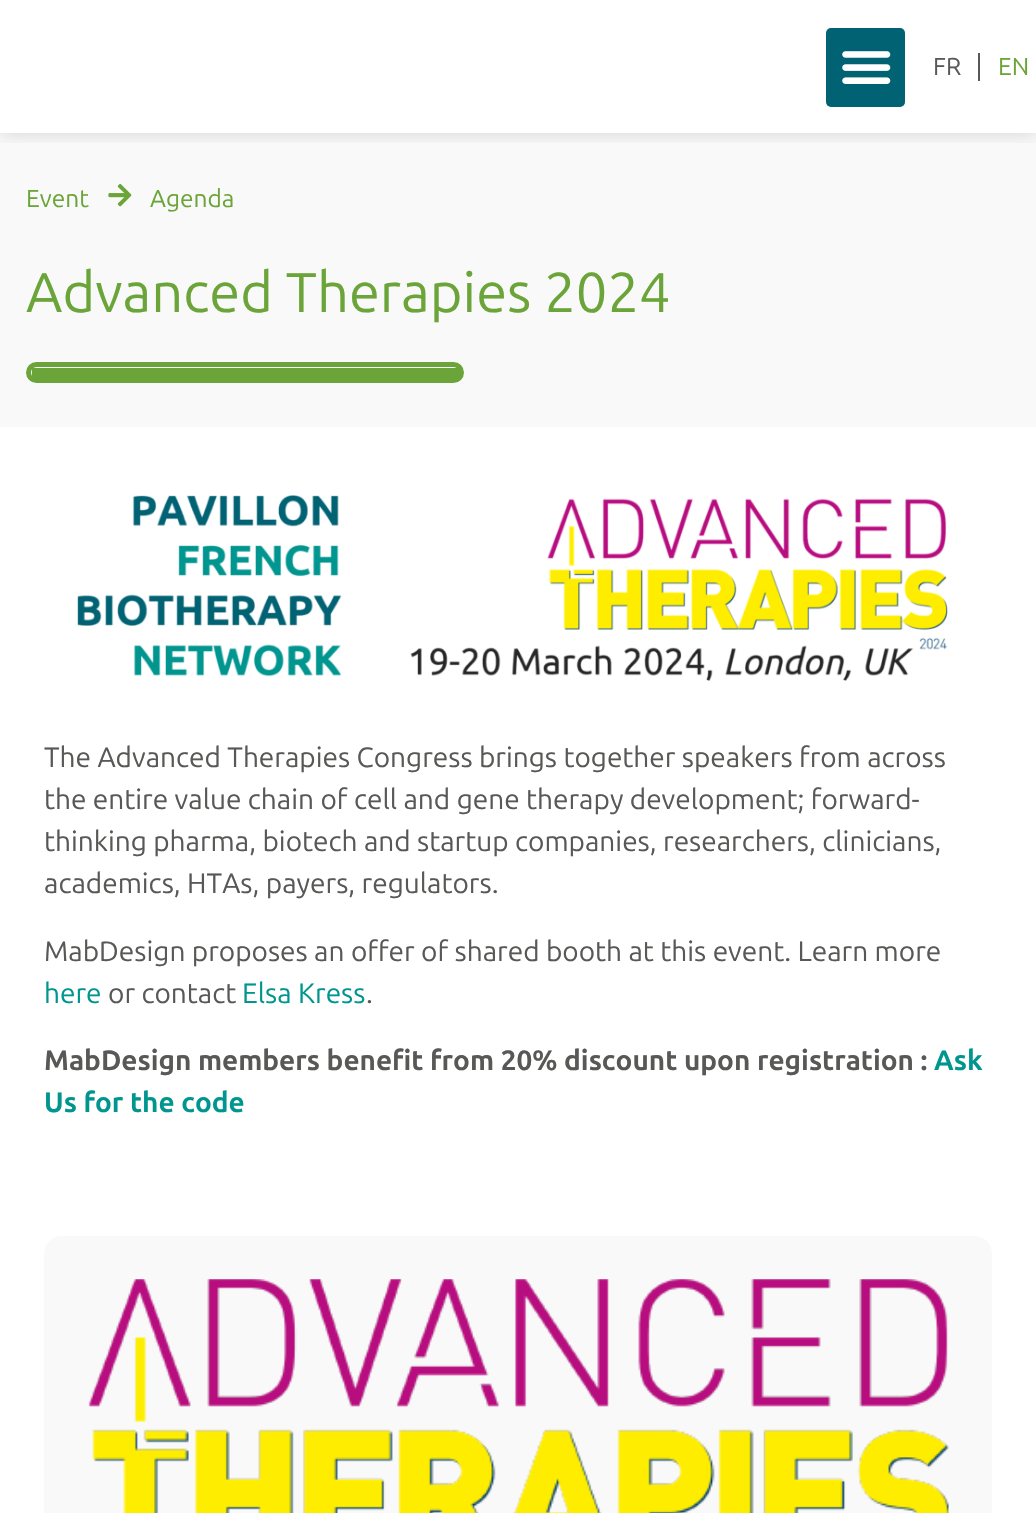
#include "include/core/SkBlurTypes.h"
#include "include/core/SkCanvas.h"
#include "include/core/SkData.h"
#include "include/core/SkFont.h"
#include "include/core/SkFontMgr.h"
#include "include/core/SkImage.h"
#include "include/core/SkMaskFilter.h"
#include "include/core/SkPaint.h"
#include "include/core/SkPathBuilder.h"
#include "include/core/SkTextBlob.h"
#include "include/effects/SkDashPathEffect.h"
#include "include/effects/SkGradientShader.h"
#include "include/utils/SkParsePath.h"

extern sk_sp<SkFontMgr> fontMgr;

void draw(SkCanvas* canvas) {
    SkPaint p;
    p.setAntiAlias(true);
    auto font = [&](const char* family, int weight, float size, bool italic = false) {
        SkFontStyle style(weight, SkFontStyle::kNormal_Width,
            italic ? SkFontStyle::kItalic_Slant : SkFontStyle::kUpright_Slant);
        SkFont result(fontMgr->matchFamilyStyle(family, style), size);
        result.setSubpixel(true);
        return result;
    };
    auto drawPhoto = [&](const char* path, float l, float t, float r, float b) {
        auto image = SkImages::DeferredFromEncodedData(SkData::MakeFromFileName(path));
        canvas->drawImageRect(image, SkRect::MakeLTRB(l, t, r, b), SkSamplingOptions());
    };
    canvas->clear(0xFFFFFFFF);
    p.setColor(0xFFF9F9F9);
    canvas->drawRect(SkRect::MakeLTRB(0, 133, 1036, 427), p);
    canvas->save();
    canvas->clipRect(SkRect::MakeLTRB(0, 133, 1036, 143));
    p.setColor(0x26000000);
    p.setMaskFilter(SkMaskFilter::MakeBlur(kNormal_SkBlurStyle, 9));
    canvas->drawRect(SkRect::MakeLTRB(0, 0, 1036, 133), p);
    p.setMaskFilter(nullptr);
    canvas->restore();
    p.setColor(0xFF006272);
    canvas->drawRoundRect(SkRect::MakeLTRB(826, 28, 905, 107), 5, 5, p);
    drawPhoto("media/1.png", 842, 51, 891, 84);
    auto font1 = font("Ubuntu", 400, 24.5f);
    p.setColor(0xFF585857);
    canvas->drawString("FR", 933, 75, font1, p);
    canvas->drawRect(SkRect::MakeLTRB(978, 53, 980, 81), p);
    p.setColor(0xFF6BA539);
    canvas->drawString("EN", 998, 75, font1, p);
    canvas->drawString("Event", 26, 207, font1, p);
    drawPhoto("media/2.png", 108, 183, 132, 207);
    canvas->drawString("Agenda", 150, 207, font1, p);
    auto font2 = font("Ubuntu", 400, 56);
    canvas->drawString("Advanced Therapies 2024", 26, 312, font2, p);
    p.setStyle(SkPaint::kStroke_Style);
    p.setStrokeWidth(5);
    canvas->drawRoundRect(SkRect::MakeLTRB(28.5f, 364.5f, 461.5f, 380.5f), 8, 8, p);
    p.setStyle(SkPaint::kFill_Style);
    canvas->drawRect(SkRect::MakeLTRB(32, 368, 459, 378), p);
    drawPhoto("media/3.png", 77, 495, 948, 681);
    auto font3 = font("Ubuntu", 400, 28);
    p.setColor(0xFF585857);
    {
        const struct { const char* s; float x, y; } items[] = {
            {"The Advanced Therapies Congress brings together speakers from across", 44, 767},
            {"the entire value chain of cell and gene therapy development; forward-", 44, 809},
            {"thinking pharma, biotech and startup companies, researchers, clinicians,", 44, 851},
            {"academics, HTAs, payers, regulators.", 44, 893},
            {"MabDesign proposes an offer of shared booth at this event. Learn more", 44, 961},
        };
        for (auto [s, x, y] : items) {
            canvas->drawString(s, x, y, font3, p);
        }
    }
    p.setColor(0xFF00968F);
    canvas->drawString("here", 44, 1003, font3, p);
    p.setColor(0xFF585857);
    canvas->drawString("or contact", 108, 1003, font3, p);
    p.setColor(0xFF00968F);
    canvas->drawString("Elsa Kress", 242, 1003, font3, p);
    p.setColor(0xFF585857);
    canvas->drawString(".", 366, 1003, font3, p);
    auto font4 = font("Ubuntu", 700, 28);
    canvas->drawString("MabDesign members benefit from 20% discount upon registration :", 44, 1070, font4, p);
    p.setColor(0xFF00968F);
    canvas->drawString("Ask", 934, 1070, font4, p);
    canvas->drawString("Us for the code", 44, 1112, font4, p);
    p.setColor(0xFFF9F9F9);
    canvas->drawRoundRect(SkRect::MakeLTRB(44, 1236, 992, 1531), 18, 18, p);
    drawPhoto("media/4.png", 88, 1279, 949, 1513);
}
